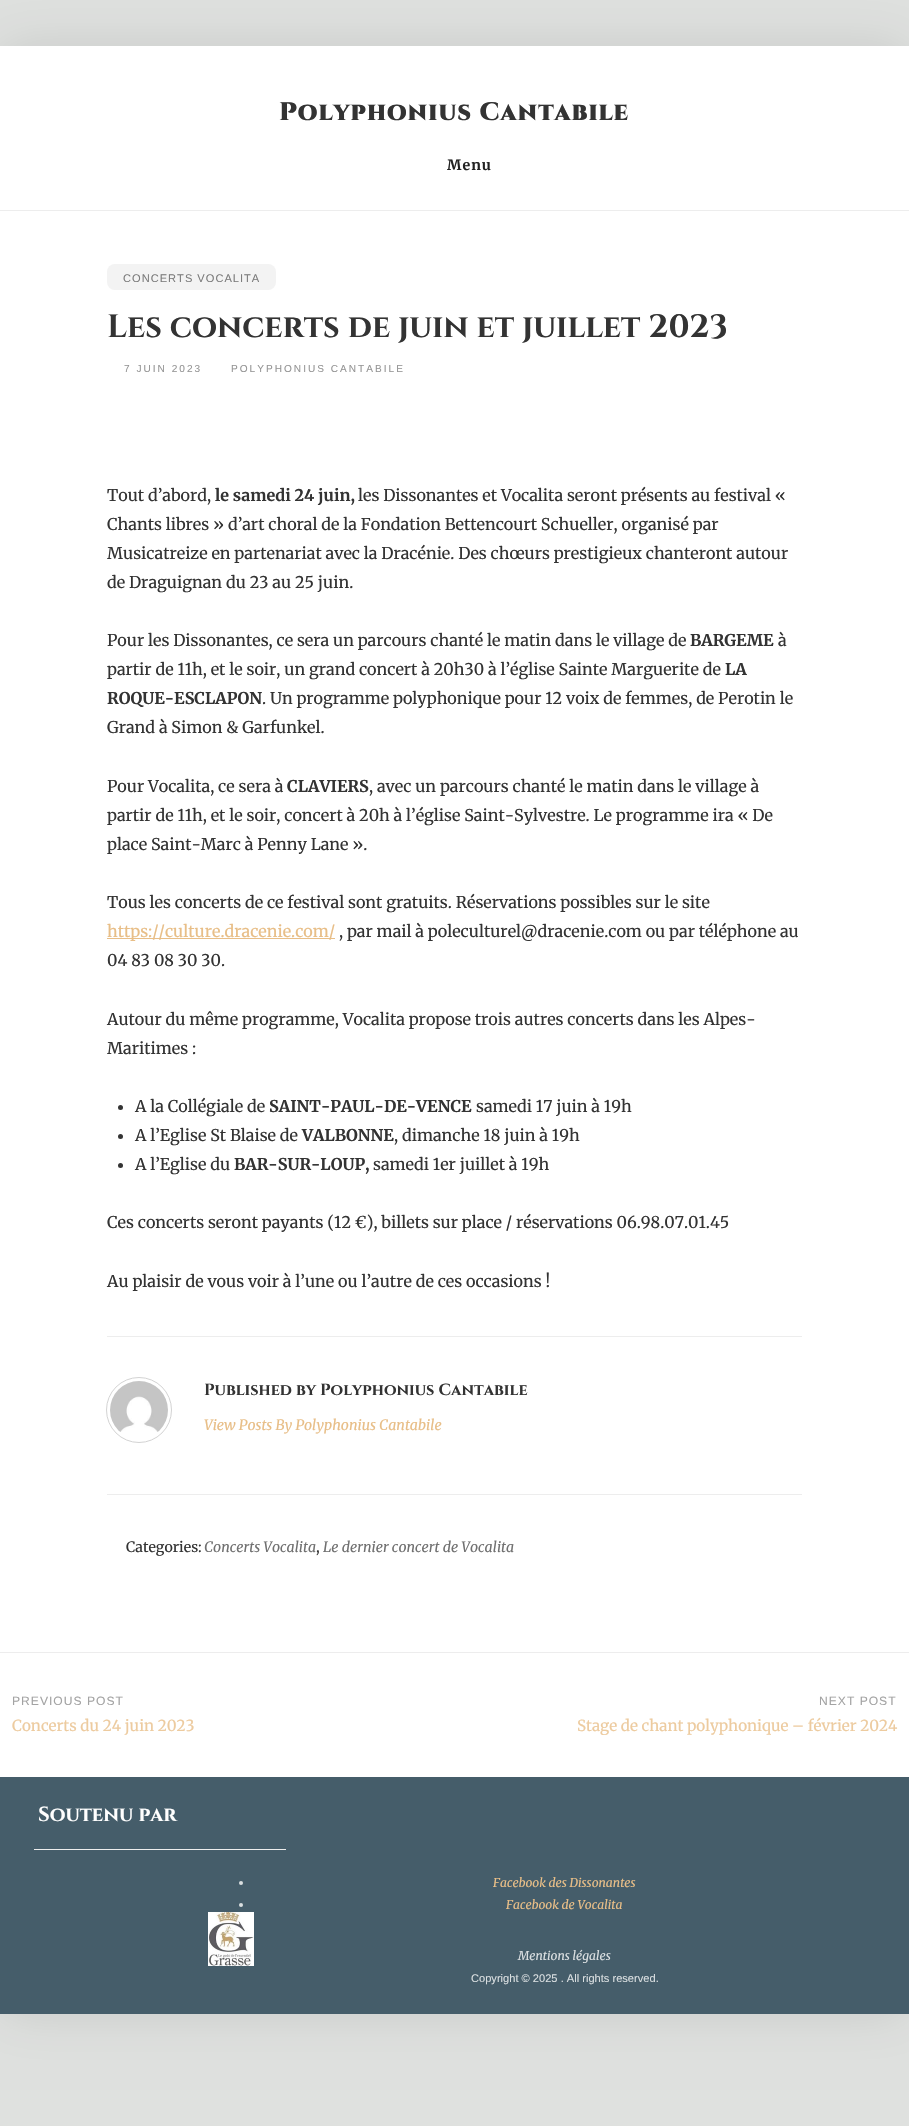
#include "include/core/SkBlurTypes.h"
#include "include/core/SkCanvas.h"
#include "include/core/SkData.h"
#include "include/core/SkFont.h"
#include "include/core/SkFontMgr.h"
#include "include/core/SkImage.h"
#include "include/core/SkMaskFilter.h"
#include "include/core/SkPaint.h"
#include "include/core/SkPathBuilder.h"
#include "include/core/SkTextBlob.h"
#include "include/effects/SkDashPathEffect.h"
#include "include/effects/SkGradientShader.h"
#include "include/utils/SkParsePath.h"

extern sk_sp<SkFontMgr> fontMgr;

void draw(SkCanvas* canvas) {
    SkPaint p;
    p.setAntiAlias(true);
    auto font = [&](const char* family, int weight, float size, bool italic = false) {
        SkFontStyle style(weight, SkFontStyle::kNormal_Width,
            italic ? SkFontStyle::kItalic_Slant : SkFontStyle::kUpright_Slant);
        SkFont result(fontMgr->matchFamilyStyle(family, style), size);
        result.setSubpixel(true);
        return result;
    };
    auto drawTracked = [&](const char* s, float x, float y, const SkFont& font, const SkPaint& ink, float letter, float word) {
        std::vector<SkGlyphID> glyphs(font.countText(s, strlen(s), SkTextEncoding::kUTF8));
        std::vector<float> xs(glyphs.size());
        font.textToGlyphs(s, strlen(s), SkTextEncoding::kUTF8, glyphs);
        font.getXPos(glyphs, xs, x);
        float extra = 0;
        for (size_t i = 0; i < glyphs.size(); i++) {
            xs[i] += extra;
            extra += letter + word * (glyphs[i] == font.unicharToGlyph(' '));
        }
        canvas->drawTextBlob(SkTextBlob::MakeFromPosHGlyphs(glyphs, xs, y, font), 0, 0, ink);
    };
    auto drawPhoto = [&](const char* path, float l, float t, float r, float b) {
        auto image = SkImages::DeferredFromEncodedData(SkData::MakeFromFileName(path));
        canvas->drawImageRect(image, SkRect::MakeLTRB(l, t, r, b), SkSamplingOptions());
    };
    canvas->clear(0xFFDFE1DF);
    p.setColor(0x1A000000);
    p.setMaskFilter(SkMaskFilter::MakeBlur(kNormal_SkBlurStyle, 25.5f));
    canvas->drawRect(SkRect::MakeLTRB(0, 46, 909, 2014), p);
    p.setMaskFilter(nullptr);
    p.setColor(0xFFFFFFFF);
    canvas->drawRect(SkRect::MakeLTRB(0, 46, 909, 1777), p);
    p.setColor(0xFFEDEDED);
    canvas->drawRect(SkRect::MakeLTRB(0, 210, 909, 211), p);
    auto font1 = font("Cinzel", 900, 25.25f);
    p.setColor(0xFF333333);
    drawTracked("Polyphonius Cantabile", 279, 120, font1, p, 1, 0);
    auto font2 = font("Merriweather", 700, 14.2f);
    p.setColor(0xFF222222);
    drawTracked("Menu", 447, 170, font2, p, 1, 0);
    p.setColor(0xFFF3F3F3);
    canvas->drawRoundRect(SkRect::MakeLTRB(107, 264, 276, 290), 8, 8, p);
    auto font3 = font("Liberation Sans", 400, 11.1f);
    p.setColor(0xFF7C7C7C);
    drawTracked("CONCERTS VOCALITA", 123, 282, font3, p, 1, 0);
    auto font4 = font("Cinzel", 700, 32.3f);
    p.setColor(0xFF333333);
    canvas->drawString("Les concerts de juin et juillet 2023", 107, 337, font4, p);
    auto font5 = font("Liberation Sans", 400, 10.1f);
    p.setColor(0xFF959595);
    drawTracked("7 JUIN 2023", 124, 372, font5, p, 2, 0);
    drawTracked("POLYPHONIUS CANTABILE", 231, 372, font5, p, 2, 0);
    auto font6 = font("Merriweather", 400, 16.15f);
    p.setColor(0xFF333333);
    canvas->drawString("Tout d’abord,", 107, 501, font6, p);
    auto font7 = font("Merriweather", 700, 16.15f);
    canvas->drawString("le samedi 24 juin,", 215, 501, font7, p);
    {
        const struct { const char* s; float x, y; } items[] = {
            {"les Dissonantes et Vocalita seront présents au festival «", 358, 501},
            {"Chants libres » d’art choral de la Fondation Bettencourt Schueller, organisé par", 107, 530},
            {"Musicatreize en partenariat avec la Dracénie. Des chœurs prestigieux chanteront autour", 107, 559},
            {"de Draguignan du 23 au 25 juin.", 107, 588},
            {"Pour les Dissonantes, ce sera un parcours chanté le matin dans le village de", 107, 646},
        };
        for (auto [s, x, y] : items) {
            canvas->drawString(s, x, y, font6, p);
        }
    }
    canvas->drawString("BARGEME", 690, 646, font7, p);
    canvas->drawString("à", 778, 646, font6, p);
    canvas->drawString("partir de 11h, et le soir, un grand concert à 20h30 à l’église Sainte Marguerite de", 107, 675, font6, p);
    canvas->drawString("LA", 725, 675, font7, p);
    canvas->drawString("ROQUE-ESCLAPON", 107, 704, font7, p);
    {
        const struct { const char* s; float x, y; } items[] = {
            {". Un programme polyphonique pour 12 voix de femmes, de Perotin le", 262, 704},
            {"Grand à Simon & Garfunkel.", 107, 733},
            {"Pour Vocalita, ce sera à", 107, 792},
        };
        for (auto [s, x, y] : items) {
            canvas->drawString(s, x, y, font6, p);
        }
    }
    canvas->drawString("CLAVIERS", 287, 792, font7, p);
    {
        const struct { const char* s; float x, y; } items[] = {
            {", avec un parcours chanté le matin dans le village à", 369, 792},
            {"partir de 11h, et le soir, concert à 20h à l’église Saint-Sylvestre. Le programme ira « De", 107, 821},
            {"place Saint-Marc à Penny Lane ».", 107, 850},
            {"Tous les concerts de ce festival sont gratuits. Réservations possibles sur le site", 107, 908},
        };
        for (auto [s, x, y] : items) {
            canvas->drawString(s, x, y, font6, p);
        }
    }
    p.setColor(0xFFE8BE87);
    canvas->drawRect(SkRect::MakeLTRB(107, 938, 335, 939), p);
    canvas->drawString("https://culture.dracenie.com/", 107, 937, font6, p);
    p.setColor(0xFF333333);
    {
        const struct { const char* s; float x, y; } items[] = {
            {", par mail à poleculturel@dracenie.com ou par téléphone au", 339, 937},
            {"04 83 08 30 30.", 107, 966},
            {"Autour du même programme, Vocalita propose trois autres concerts dans les Alpes-", 107, 1025},
            {"Maritimes :", 107, 1054},
        };
        for (auto [s, x, y] : items) {
            canvas->drawString(s, x, y, font6, p);
        }
    }
    canvas->drawCircle(120.5f, 1107.5f, 2.5f, p);
    canvas->drawString("A la Collégiale de", 135, 1112, font6, p);
    canvas->drawString("SAINT-PAUL-DE-VENCE", 269, 1112, font7, p);
    canvas->drawString("samedi 17 juin à 19h", 476, 1112, font6, p);
    canvas->drawCircle(120.5f, 1136.5f, 2.5f, p);
    canvas->drawString("A l’Eglise St Blaise de", 135, 1141, font6, p);
    canvas->drawString("VALBONNE", 302, 1141, font7, p);
    canvas->drawString(", dimanche 18 juin à 19h", 394, 1141, font6, p);
    canvas->drawCircle(120.5f, 1165.5f, 2.5f, p);
    canvas->drawString("A l’Eglise du", 135, 1170, font6, p);
    canvas->drawString("BAR-SUR-LOUP,", 234, 1170, font7, p);
    {
        const struct { const char* s; float x, y; } items[] = {
            {"samedi 1er juillet à 19h", 373, 1170},
            {"Ces concerts seront payants (12 €), billets sur place / réservations 06.98.07.01.45", 107, 1228},
            {"Au plaisir de vous voir à l’une ou l’autre de ces occasions !", 107, 1287},
        };
        for (auto [s, x, y] : items) {
            canvas->drawString(s, x, y, font6, p);
        }
    }
    p.setColor(0xFFEDEDED);
    canvas->drawRect(SkRect::MakeLTRB(107, 1336, 802, 1337), p);
    drawPhoto("media/1.png", 110, 1381, 168, 1432);
    p.setStyle(SkPaint::kStroke_Style);
    p.setStrokeWidth(1);
    p.setColor(0xFFD3D3D3);
    canvas->drawCircle(139, 1410, 32.5f, p);
    auto font8 = font("Cinzel", 700, 16.15f);
    p.setStyle(SkPaint::kFill_Style);
    p.setColor(0xFF333333);
    canvas->drawString("Published by Polyphonius Cantabile", 204, 1395, font8, p);
    auto font9 = font("Merriweather", 400, 14.2f, true);
    p.setColor(0xFFE8BE87);
    canvas->drawString("View Posts By Polyphonius Cantabile", 204, 1430, font9, p);
    p.setColor(0xFFEDEDED);
    canvas->drawRect(SkRect::MakeLTRB(107, 1494, 802, 1495), p);
    auto font10 = font("Merriweather", 400, 14.2f);
    p.setColor(0xFF333333);
    canvas->drawString("Categories:", 126, 1552, font10, p);
    p.setColor(0xFF707070);
    canvas->drawString("Concerts Vocalita", 204, 1552, font9, p);
    p.setColor(0xFF333333);
    canvas->drawString(",", 316, 1552, font10, p);
    p.setColor(0xFF707070);
    canvas->drawString("Le dernier concert de Vocalita", 323, 1552, font9, p);
    p.setColor(0xFFEDEDED);
    canvas->drawRect(SkRect::MakeLTRB(0, 1652, 909, 1653), p);
    auto font11 = font("Liberation Sans", 400, 12.1f);
    p.setColor(0xFFA3A3A3);
    drawTracked("PREVIOUS POST", 12, 1705, font11, p, 1, 0);
    auto font12 = font("Merriweather", 400, 15.2f);
    p.setColor(0xFFEDCB9F);
    canvas->drawString("Concerts du 24 juin 2023", 12, 1731, font12, p);
    p.setColor(0xFFA3A3A3);
    drawTracked("NEXT POST", 819, 1705, font11, p, 1, 0);
    p.setColor(0xFFEDCB9F);
    canvas->drawString("Stage de chant polyphonique – février 2024", 577, 1731, font12, p);
    p.setColor(0xFF455D6A);
    canvas->drawRect(SkRect::MakeLTRB(0, 1777, 909, 2014), p);
    auto font13 = font("Cinzel", 700, 20.25f);
    p.setColor(0xFFFFFFFF);
    canvas->drawString("Soutenu par", 38, 1821, font13, p);
    p.setColor(0xFFEDEDED);
    canvas->drawRect(SkRect::MakeLTRB(34, 1849, 286, 1850), p);
    drawPhoto("media/2.png", 208, 1912, 254, 1966);
    p.setColor(0xFFDADFE1);
    canvas->drawCircle(241, 1883, 2, p);
    auto font14 = font("Merriweather", 400, 12.1f, true);
    p.setColor(0xFFE8BE87);
    canvas->drawString("Facebook des Dissonantes", 493, 1887, font14, p);
    p.setColor(0xFFDADFE1);
    canvas->drawCircle(241, 1905, 2, p);
    p.setColor(0xFFE8BE87);
    canvas->drawString("Facebook de Vocalita", 506, 1909, font14, p);
    p.setColor(0xFFDADFE1);
    canvas->drawString("Mentions légales", 518, 1960, font14, p);
    canvas->drawString("Copyright © 2025 . All rights reserved.", 471, 1982, font3, p);
}
